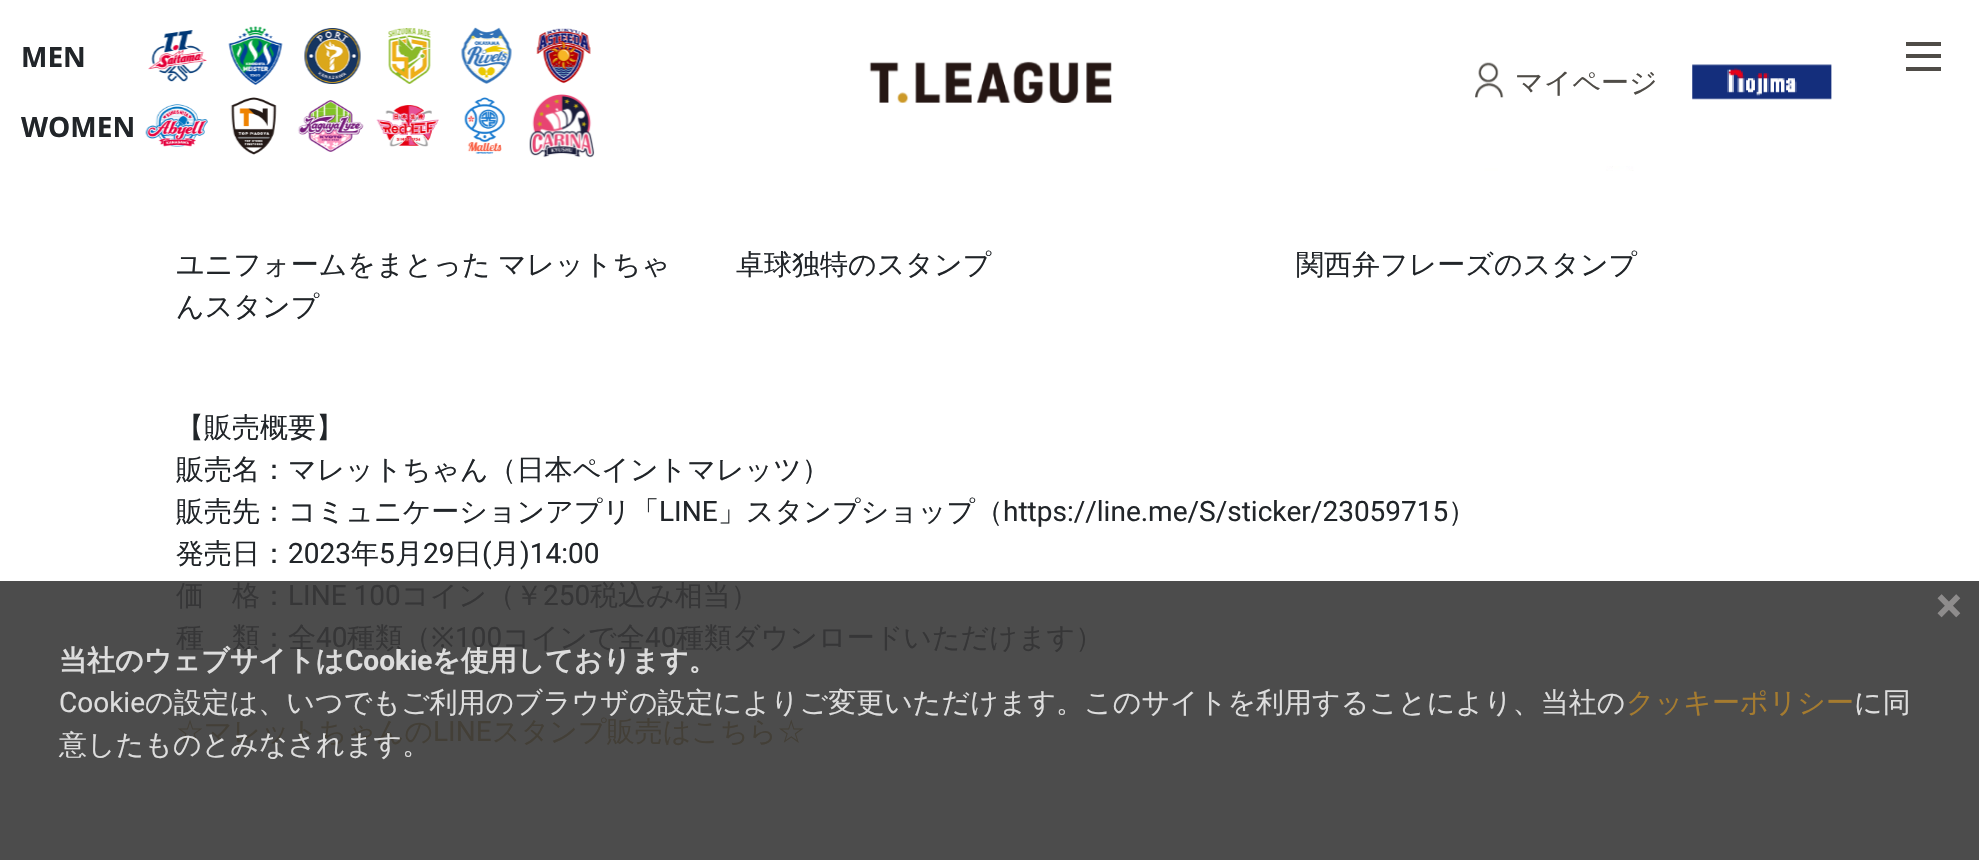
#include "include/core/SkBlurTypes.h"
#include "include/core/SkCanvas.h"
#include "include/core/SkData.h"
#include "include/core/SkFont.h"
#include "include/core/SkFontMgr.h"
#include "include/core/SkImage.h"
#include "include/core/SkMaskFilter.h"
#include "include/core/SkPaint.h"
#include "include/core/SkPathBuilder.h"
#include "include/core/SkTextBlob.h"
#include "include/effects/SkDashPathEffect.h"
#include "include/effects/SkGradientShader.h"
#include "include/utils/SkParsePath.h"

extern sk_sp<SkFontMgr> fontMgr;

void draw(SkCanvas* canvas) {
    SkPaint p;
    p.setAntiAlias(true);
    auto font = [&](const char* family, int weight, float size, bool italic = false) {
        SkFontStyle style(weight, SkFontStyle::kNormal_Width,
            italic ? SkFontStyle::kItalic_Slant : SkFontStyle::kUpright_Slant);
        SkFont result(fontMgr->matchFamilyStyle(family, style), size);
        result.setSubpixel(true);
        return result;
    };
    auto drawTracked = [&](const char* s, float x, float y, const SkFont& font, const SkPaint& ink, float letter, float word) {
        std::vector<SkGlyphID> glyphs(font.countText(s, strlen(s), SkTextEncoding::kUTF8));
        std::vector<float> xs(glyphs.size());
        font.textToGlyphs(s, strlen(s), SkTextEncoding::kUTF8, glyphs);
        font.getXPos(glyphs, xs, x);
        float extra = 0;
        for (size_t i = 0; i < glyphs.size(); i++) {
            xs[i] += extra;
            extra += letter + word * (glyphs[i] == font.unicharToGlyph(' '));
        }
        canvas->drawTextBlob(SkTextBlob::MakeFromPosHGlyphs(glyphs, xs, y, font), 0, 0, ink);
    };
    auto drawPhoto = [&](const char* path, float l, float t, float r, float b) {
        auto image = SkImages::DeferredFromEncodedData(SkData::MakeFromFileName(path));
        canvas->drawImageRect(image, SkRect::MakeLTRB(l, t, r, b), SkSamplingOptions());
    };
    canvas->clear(0xFFFFFFFF);
    p.setColor(0xFF4C4C4C);
    canvas->drawRect(SkRect::MakeLTRB(0, 581, 1979, 860), p);
    auto font1 = font("Open Sans", 700, 28);
    p.setColor(0xFF212529);
    canvas->drawString("MEN", 21, 67, font1, p);
    drawPhoto("media/1.png", 148, 30, 207, 82);
    drawPhoto("media/2.png", 228, 26, 283, 85);
    drawPhoto("media/3.png", 304, 28, 361, 84);
    drawPhoto("media/4.png", 388, 28, 431, 84);
    drawPhoto("media/5.png", 461, 27, 512, 84);
    drawPhoto("media/6.png", 536, 28, 591, 84);
    canvas->drawString("WOMEN", 21, 137, font1, p);
    drawPhoto("media/7.png", 145, 104, 208, 147);
    drawPhoto("media/8.png", 230, 97, 277, 155);
    drawPhoto("media/9.png", 297, 100, 364, 152);
    drawPhoto("media/10.png", 376, 105, 439, 147);
    drawPhoto("media/11.png", 464, 97, 506, 154);
    drawPhoto("media/12.png", 529, 94, 595, 158);
    drawPhoto("media/13.png", 869, 61, 1112, 103);
    {
        const struct { float l, t, r, b; SkColor color; } items[] = {
            {1906, 42, 1941, 46, 0xFF4F4C47},
            {1906, 54, 1941, 58, 0xFF4F4C47},
            {1906, 67, 1941, 71, 0xFF4F4C47},
        };
        for (auto [l, t, r, b, color] : items) {
            p.setColor(color);
            canvas->drawRect(SkRect::MakeLTRB(l, t, r, b), p);
        }
    }
    drawPhoto("media/14.png", 1475, 62, 1504, 98);
    auto font2 = font("WenQuanYi Zen Hei", 500, 28);
    canvas->drawString("マイページ", 1515, 92, font2, p);
    drawPhoto("media/15.png", 1692, 64, 1832, 100);
    p.setColor(0xFF212529);
    drawTracked("ユニフォームをまとった マレットちゃ", 176, 274, font2, p, 0, -1);
    canvas->drawString("んスタンプ", 176, 316, font2, p);
    canvas->drawString("卓球独特のスタンプ", 736, 274, font2, p);
    drawPhoto("media/16.png", 1430, 166, 1647, 171);
    {
        const struct { const char* s; float x, y; } items[] = {
            {"関西弁フレーズのスタンプ", 1296, 274},
            {"【販売概要】", 176, 437},
            {"販売名：マレットちゃん（日本ペイントマレッツ）", 176, 479},
            {"販売先：コミュニケーションアプリ「", 176, 521},
        };
        for (auto [s, x, y] : items) {
            canvas->drawString(s, x, y, font2, p);
        }
    }
    auto font3 = font("Roboto", 400, 28);
    canvas->drawString("LINE", 659, 521, font3, p);
    canvas->drawString("」スタンプショップ（", 718, 521, font2, p);
    canvas->drawString("https://line.me/S/sticker/23059715", 1003, 521, font3, p);
    canvas->drawString("）", 1448, 521, font2, p);
    canvas->drawString("発売日：", 176, 563, font2, p);
    canvas->drawString("2023", 288, 563, font3, p);
    canvas->drawString("年", 351, 563, font2, p);
    canvas->drawString("5", 379, 563, font3, p);
    canvas->drawString("月", 395, 563, font2, p);
    canvas->drawString("29", 423, 563, font3, p);
    canvas->drawString("日", 454, 563, font2, p);
    canvas->drawString("(", 482, 563, font3, p);
    canvas->drawString("月", 492, 563, font2, p);
    canvas->drawString(")14:00", 520, 563, font3, p);
    p.setColor(0xFF363637);
    canvas->drawString("価　格：", 176, 605, font2, p);
    canvas->drawString("LINE 100", 288, 605, font3, p);
    canvas->drawString("コイン（￥", 401, 605, font2, p);
    canvas->drawString("250", 543, 605, font3, p);
    canvas->drawString("税込み相当）", 590, 605, font2, p);
    canvas->drawString("種　類：全", 176, 647, font2, p);
    canvas->drawString("40", 316, 647, font3, p);
    canvas->drawString("種類（", 347, 647, font2, p);
    auto font4 = font("Noto Sans", 400, 28);
    canvas->drawString("※", 431, 647, font4, p);
    canvas->drawString("100", 455, 647, font3, p);
    canvas->drawString("コインで全", 502, 647, font2, p);
    canvas->drawString("40", 645, 647, font3, p);
    canvas->drawString("種類ダウンロードいただけます）", 676, 647, font2, p);
    p.setColor(0xFF433F37);
    canvas->drawString("☆マレットちゃんの", 176, 741, font2, p);
    canvas->drawString("LINE", 433, 741, font3, p);
    canvas->drawString("スタンプ販売はこちら☆", 492, 741, font2, p);
    auto font5 = font("Roboto", 700, 49);
    p.setColor(0xFF8E8C8C);
    canvas->drawString("×", 1936, 622, font5, p);
    auto font6 = font("WenQuanYi Zen Hei", 700, 28);
    p.setColor(0xFFDDDDDD);
    canvas->drawString("当社のウェブサイトは", 59, 670, font6, p);
    auto font7 = font("Roboto", 700, 28);
    canvas->drawString("Cookie", 345, 670, font7, p);
    canvas->drawString("を使用しております。", 432, 670, font6, p);
    canvas->drawString("Cookie", 59, 712, font3, p);
    canvas->drawString("の設定は、いつでもご利用のブラウザの設定によりご変更いただけます。このサイトを利用することにより、当社の", 145, 712, font2, p);
    p.setColor(0xFFA57B2F);
    canvas->drawString("クッキーポリシー", 1626, 712, font2, p);
    p.setColor(0xFFDDDDDD);
    canvas->drawString("に同", 1854, 712, font2, p);
    canvas->drawString("意したものとみなされます。", 59, 754, font2, p);
}
